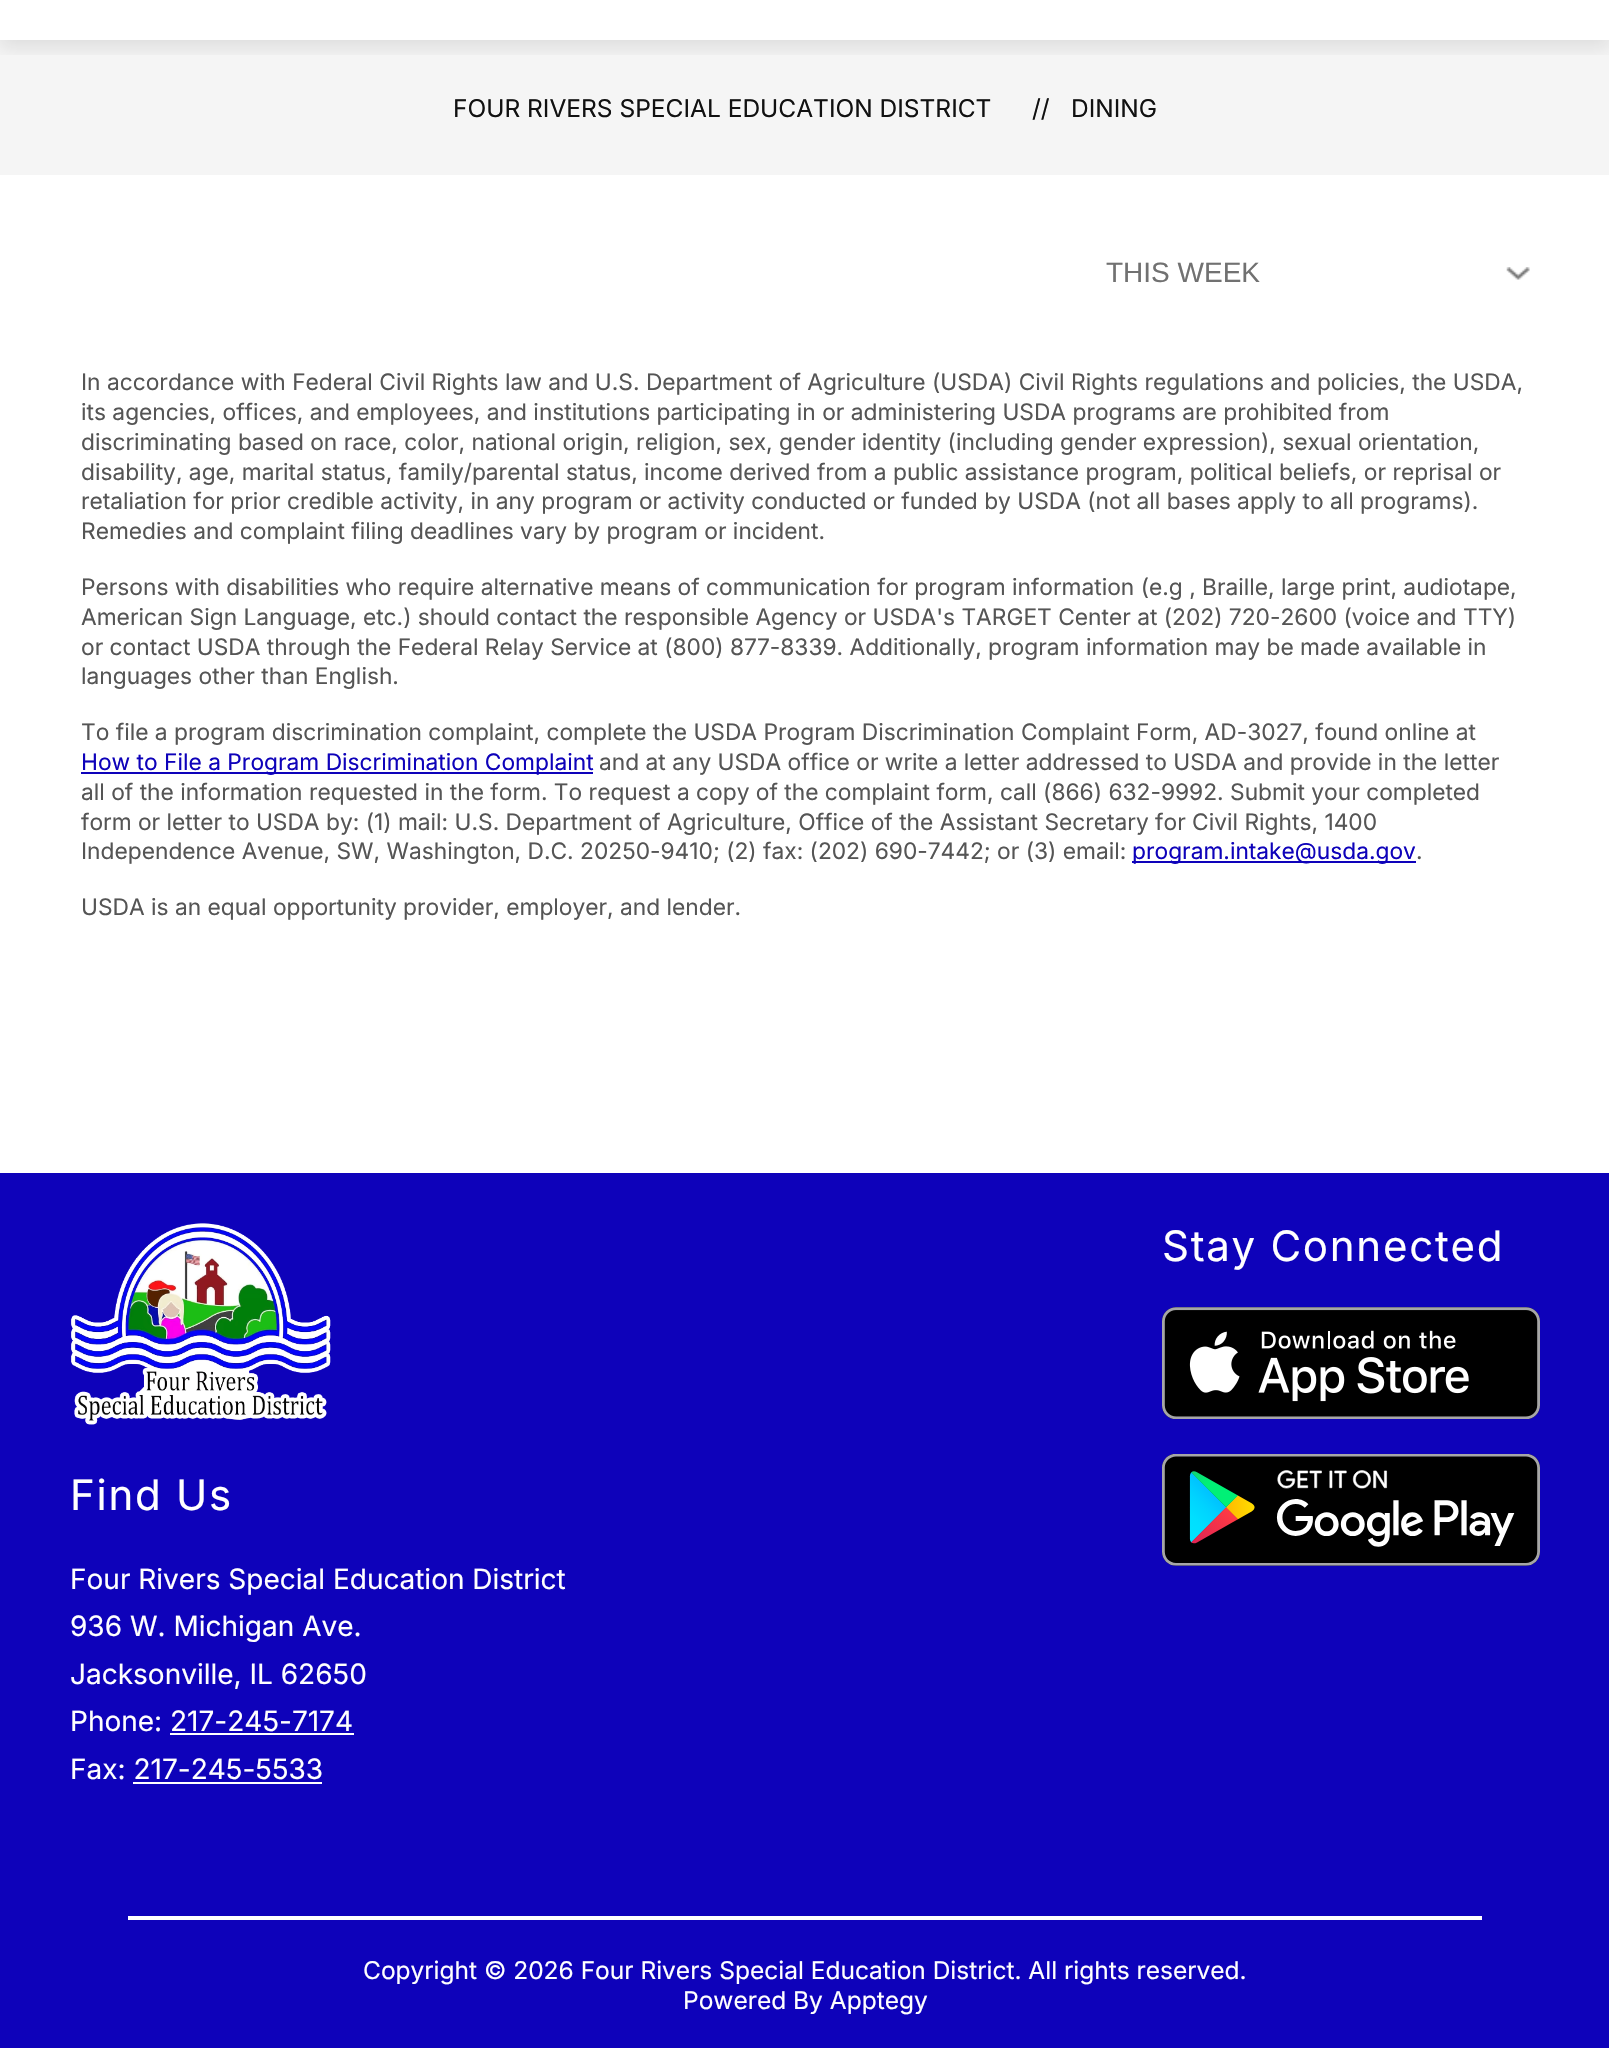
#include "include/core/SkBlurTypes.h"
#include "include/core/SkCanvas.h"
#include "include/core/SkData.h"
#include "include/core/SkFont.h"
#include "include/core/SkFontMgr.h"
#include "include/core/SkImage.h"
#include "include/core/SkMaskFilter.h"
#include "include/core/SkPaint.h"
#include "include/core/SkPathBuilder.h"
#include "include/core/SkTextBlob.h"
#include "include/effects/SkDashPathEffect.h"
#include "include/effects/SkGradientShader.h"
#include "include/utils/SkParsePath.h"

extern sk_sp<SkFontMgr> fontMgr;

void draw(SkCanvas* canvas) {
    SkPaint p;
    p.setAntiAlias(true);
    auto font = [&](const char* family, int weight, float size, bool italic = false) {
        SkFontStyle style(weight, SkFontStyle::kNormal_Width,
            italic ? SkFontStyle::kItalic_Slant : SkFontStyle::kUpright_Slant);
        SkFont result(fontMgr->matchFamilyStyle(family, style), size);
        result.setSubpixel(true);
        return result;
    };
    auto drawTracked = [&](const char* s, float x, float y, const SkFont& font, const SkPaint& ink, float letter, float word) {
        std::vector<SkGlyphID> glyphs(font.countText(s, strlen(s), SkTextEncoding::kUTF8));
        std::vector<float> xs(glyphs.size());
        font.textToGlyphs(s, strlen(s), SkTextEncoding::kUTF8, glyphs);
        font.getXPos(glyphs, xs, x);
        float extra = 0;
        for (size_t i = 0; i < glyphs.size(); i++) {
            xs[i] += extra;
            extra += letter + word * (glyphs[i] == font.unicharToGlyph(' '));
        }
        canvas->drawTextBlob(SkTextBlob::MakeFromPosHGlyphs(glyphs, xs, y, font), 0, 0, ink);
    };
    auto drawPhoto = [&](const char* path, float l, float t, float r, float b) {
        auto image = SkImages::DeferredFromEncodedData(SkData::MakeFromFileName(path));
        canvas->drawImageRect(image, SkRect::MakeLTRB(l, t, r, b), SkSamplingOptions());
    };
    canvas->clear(0xFFFFFFFF);
    p.setColor(0xFFF5F5F5);
    canvas->drawRect(SkRect::MakeLTRB(0, 40, 1609, 175), p);
    canvas->save();
    canvas->clipRect(SkRect::MakeLTRB(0, 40, 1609, 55));
    p.setColor(0x1A000000);
    p.setMaskFilter(SkMaskFilter::MakeBlur(kNormal_SkBlurStyle, 9));
    canvas->drawRect(SkRect::MakeLTRB(0, -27, 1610, 47), p);
    p.setMaskFilter(nullptr);
    canvas->restore();
    auto font1 = font("Inter", 400, 24.5f);
    p.setColor(0xFF111111);
    {
        const struct { const char* s; float x, y; } items[] = {
            {"FOUR RIVERS SPECIAL EDUCATION DISTRICT", 453, 117},
            {"//", 1032, 117},
            {"DINING", 1071, 117},
        };
        for (auto [s, x, y] : items) {
            canvas->drawString(s, x, y, font1, p);
        }
    }
    drawPhoto("media/1.png", 1506, 267, 1530, 280);
    auto font2 = font("Liberation Sans", 400, 28);
    p.setColor(0xFF717171);
    canvas->drawString("THIS WEEK", 1106, 282, font2, p);
    auto font3 = font("Inter", 400, 22.75f);
    p.setColor(0xFF555555);
    {
        const struct { const char* s; float x, y; } items[] = {
            {"In accordance with Federal Civil Rights law and U.S. Department of Agriculture (USDA) Civil Rights regulations and policies, the USDA,", 81, 390},
            {"its agencies, offices, and employees, and institutions participating in or administering USDA programs are prohibited from", 81, 420},
            {"discriminating based on race, color, national origin, religion, sex, gender identity (including gender expression), sexual orientation,", 81, 450},
            {"disability, age, marital status, family/parental status, income derived from a public assistance program, political beliefs, or reprisal or", 81, 480},
            {"retaliation for prior credible activity, in any program or activity conducted or funded by USDA (not all bases apply to all programs).", 81, 509},
            {"Remedies and complaint filing deadlines vary by program or incident.", 81, 539},
            {"Persons with disabilities who require alternative means of communication for program information (e.g , Braille, large print, audiotape,", 81, 595},
            {"American Sign Language, etc.) should contact the responsible Agency or USDA's TARGET Center at (202) 720-2600 (voice and TTY)", 81, 625},
            {"or contact USDA through the Federal Relay Service at (800) 877-8339. Additionally, program information may be made available in", 81, 655},
            {"languages other than English.", 81, 684},
            {"To file a program discrimination complaint, complete the USDA Program Discrimination Complaint Form, AD-3027, found online at", 81, 740},
        };
        for (auto [s, x, y] : items) {
            canvas->drawString(s, x, y, font3, p);
        }
    }
    p.setColor(0xFF0E02BA);
    canvas->drawRect(SkRect::MakeLTRB(81, 772, 593, 774), p);
    canvas->drawString("How to File a Program Discrimination Complaint", 81, 770, font3, p);
    p.setColor(0xFF555555);
    canvas->drawString("and at any USDA office or write a letter addressed to USDA and provide in the letter", 599, 770, font3, p);
    canvas->drawString("all of the information requested in the form. To request a copy of the complaint form, call (866) 632-9992. Submit your completed", 81, 800, font3, p);
    canvas->save();
    canvas->clipRect(SkRect::MakeLTRB(81, 336, 1530, 980));
    canvas->drawString("form or letter to USDA by: (1) mail: U.S. Department of Agriculture, Office of the Assistant Secretary for Civil Rights, 1400", 81, 830, font3, p);
    canvas->restore();
    canvas->drawString("Independence Avenue, SW, Washington, D.C. 20250-9410; (2) fax: (202) 690-7442; or (3) email:", 81, 859, font3, p);
    p.setColor(0xFF0E02BA);
    canvas->drawRect(SkRect::MakeLTRB(1132, 861, 1416, 863), p);
    canvas->drawString("program.intake@usda.gov", 1132, 859, font3, p);
    p.setColor(0xFF555555);
    canvas->drawString(".", 1416, 859, font3, p);
    canvas->drawString("USDA is an equal opportunity provider, employer, and lender.", 81, 915, font3, p);
    p.setColor(0xFF0E02BA);
    canvas->drawRect(SkRect::MakeLTRB(0, 1173, 1609, 2048), p);
    auto font4 = font("Inter", 400, 42);
    p.setColor(0xFFFFFFFF);
    drawTracked("Stay Connected", 1162, 1261, font4, p, 1.75f, 0);
    drawPhoto("media/2.png", 1162, 1307, 1540, 1419);
    drawPhoto("media/3.png", 1162, 1454, 1540, 1566);
    drawPhoto("media/4.png", 71, 1223, 331, 1425);
    drawTracked("Find Us", 70, 1510, font4, p, 1.75f, 0);
    auto font5 = font("Inter", 400, 28);
    {
        const struct { const char* s; float x, y; } items[] = {
            {"Four Rivers Special Education District", 70, 1589},
            {"936 W. Michigan Ave.", 70, 1636},
            {"Jacksonville, IL 62650", 70, 1684},
            {"Phone: 217-245-7174", 70, 1731},
        };
        for (auto [s, x, y] : items) {
            canvas->drawString(s, x, y, font5, p);
        }
    }
    canvas->drawRect(SkRect::MakeLTRB(170, 1733, 354, 1735), p);
    canvas->drawString("Fax: 217-245-5533", 70, 1779, font5, p);
    canvas->drawRect(SkRect::MakeLTRB(133, 1782, 322, 1784), p);
    canvas->drawRect(SkRect::MakeLTRB(128, 1916, 1482, 1920), p);
    canvas->drawString("Copyright © 2026 Four Rivers Special Education District. All rights reserved.", 363, 1979, font1, p);
    canvas->drawString("Powered By Apptegy", 683, 2009, font1, p);
}
